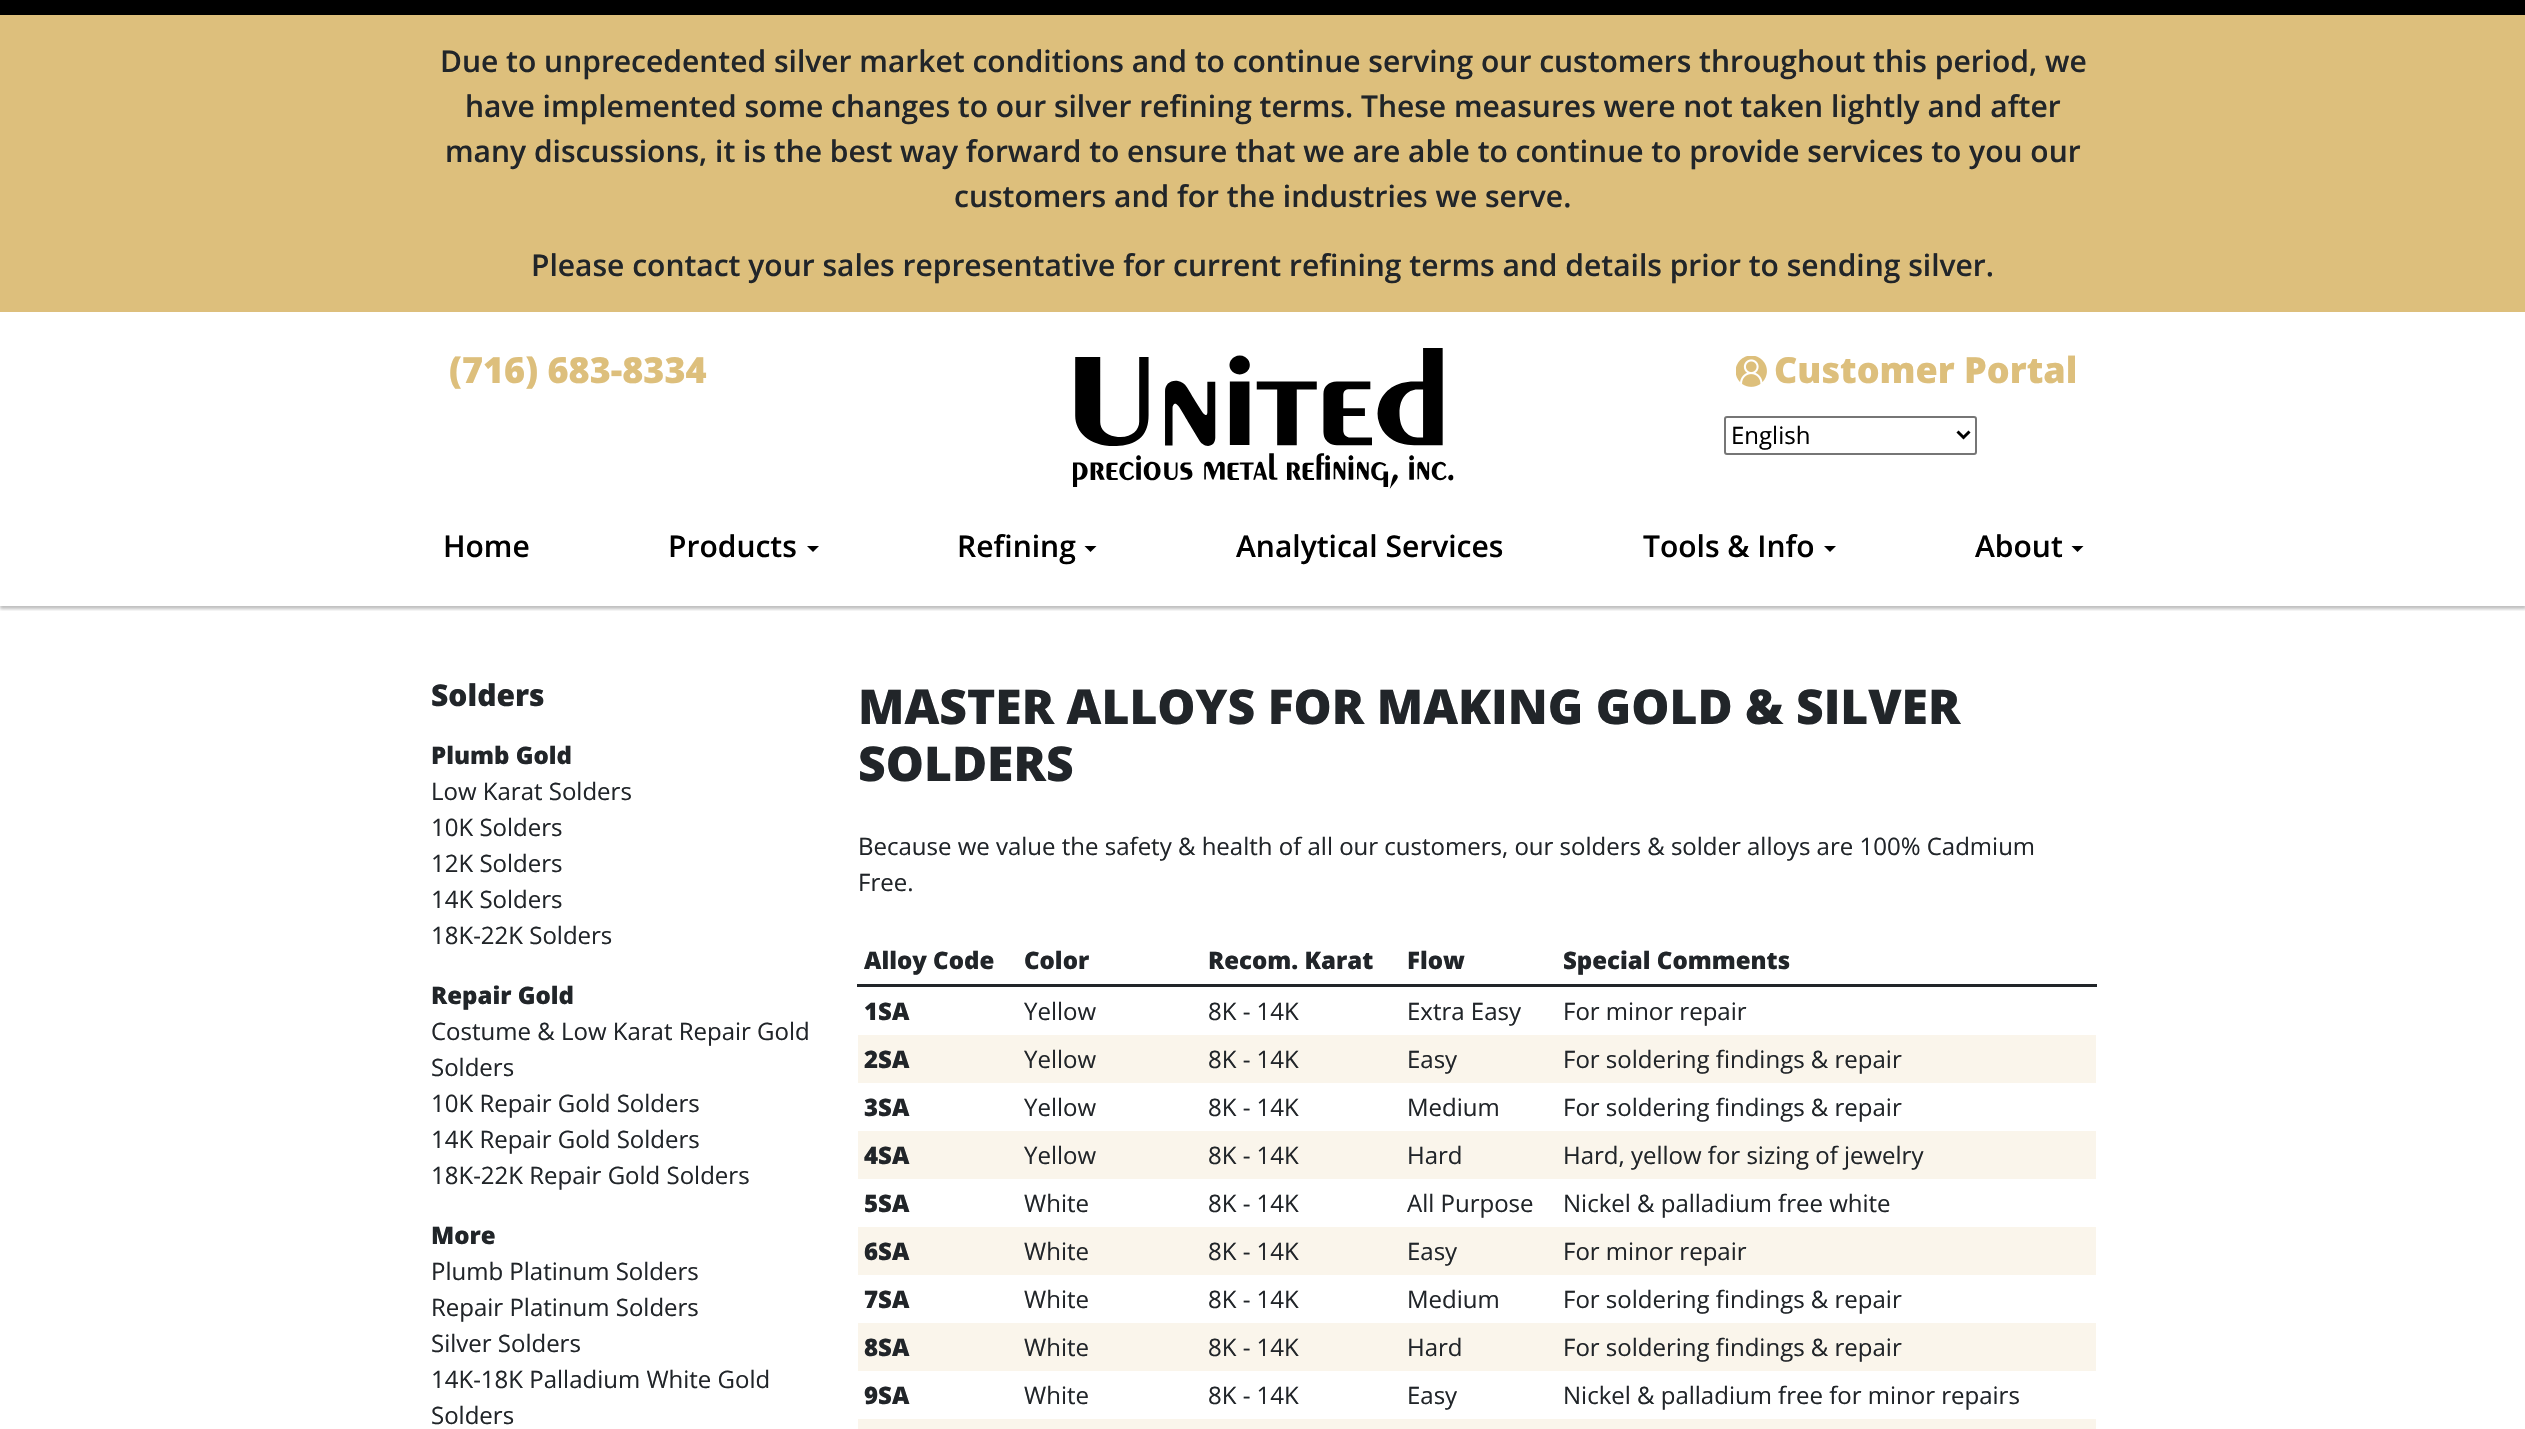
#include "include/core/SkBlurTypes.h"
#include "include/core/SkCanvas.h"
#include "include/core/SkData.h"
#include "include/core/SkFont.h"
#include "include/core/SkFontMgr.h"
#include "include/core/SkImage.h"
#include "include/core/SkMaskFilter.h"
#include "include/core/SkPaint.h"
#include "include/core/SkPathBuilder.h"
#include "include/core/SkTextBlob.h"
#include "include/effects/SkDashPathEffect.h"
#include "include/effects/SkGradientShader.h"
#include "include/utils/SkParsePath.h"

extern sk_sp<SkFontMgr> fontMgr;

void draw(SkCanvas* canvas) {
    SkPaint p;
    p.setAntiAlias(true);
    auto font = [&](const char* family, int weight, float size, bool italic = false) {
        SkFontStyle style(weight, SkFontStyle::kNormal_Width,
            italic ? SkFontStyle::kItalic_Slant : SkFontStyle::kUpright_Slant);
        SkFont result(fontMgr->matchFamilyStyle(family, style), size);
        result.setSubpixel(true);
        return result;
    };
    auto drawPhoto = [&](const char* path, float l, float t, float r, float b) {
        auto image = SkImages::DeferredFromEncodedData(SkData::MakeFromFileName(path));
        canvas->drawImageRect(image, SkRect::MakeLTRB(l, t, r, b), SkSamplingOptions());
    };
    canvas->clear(0xFFFFFFFF);
    canvas->save();
    canvas->clipRect(SkRect::MakeLTRB(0, 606, 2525, 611));
    p.setColor(0x40000000);
    p.setMaskFilter(SkMaskFilter::MakeBlur(kNormal_SkBlurStyle, 1.5f));
    canvas->drawRect(SkRect::MakeLTRB(0, 3, 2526, 609), p);
    p.setMaskFilter(nullptr);
    canvas->restore();
    p.setColor(0xFF000000);
    canvas->drawRect(SkRect::MakeLTRB(0, 0, 2525, 15), p);
    p.setColor(0xFFDDBF7C);
    canvas->drawRect(SkRect::MakeLTRB(0, 15, 2525, 312), p);
    auto font1 = font("Open Sans", 600, 30);
    p.setColor(0xFF212529);
    {
        const struct { const char* s; float x, y; } items[] = {
            {"Due to unprecedented silver market conditions and to continue serving our customers throughout this period, we", 440, 72},
            {"have implemented some changes to our silver refining terms. These measures were not taken lightly and after", 465, 117},
            {"many discussions, it is the best way forward to ensure that we are able to continue to provide services to you our", 445, 162},
            {"customers and for the industries we serve.", 954, 207},
            {"Please contact your sales representative for current refining terms and details prior to sending silver.", 531, 276},
        };
        for (auto [s, x, y] : items) {
            canvas->drawString(s, x, y, font1, p);
        }
    }
    auto font2 = font("Open Sans", 800, 36);
    p.setColor(0xFFDDBF7C);
    canvas->drawString("(716) 683-8334", 449, 383, font2, p);
    drawPhoto("media/1.png", 1073, 348, 1454, 489);
    drawPhoto("media/2.png", 1736, 356, 1767, 387);
    canvas->drawString("Customer Portal", 1774, 383, font2, p);
    p.setStyle(SkPaint::kStroke_Style);
    p.setStrokeWidth(2);
    p.setColor(0xFF767676);
    canvas->drawRoundRect(SkRect::MakeLTRB(1725, 417, 1976, 454), 2, 2, p);
    p.setStrokeWidth(3);
    p.setColor(0xFF000000);
    canvas->drawPath(SkPathBuilder().moveTo(1957.5f, 431.5f).lineTo(1963.5f, 437.5f).lineTo(1969.5f, 431.5f).detach(), p);
    auto font3 = font("Open Sans", 400, 24);
    p.setStyle(SkPaint::kFill_Style);
    canvas->drawString("English", 1731, 444, font3, p);
    canvas->drawString("Home", 443, 557, font1, p);
    canvas->drawString("Products", 668, 557, font1, p);
    canvas->drawPath(SkPathBuilder().moveTo(807, 546).lineTo(819, 546).lineTo(813, 552).close().detach(), p);
    canvas->drawString("Refining", 957, 557, font1, p);
    canvas->drawPath(SkPathBuilder().moveTo(1084.5f, 546).lineTo(1096.5f, 546).lineTo(1090.5f, 552).close().detach(), p);
    canvas->drawString("Analytical Services", 1236, 557, font1, p);
    canvas->drawString("Tools & Info", 1643, 557, font1, p);
    canvas->drawPath(SkPathBuilder().moveTo(1824, 546).lineTo(1836, 546).lineTo(1830, 552).close().detach(), p);
    canvas->drawString("About", 1975, 557, font1, p);
    canvas->drawPath(SkPathBuilder().moveTo(2071.5f, 546).lineTo(2083.5f, 546).lineTo(2077.5f, 552).close().detach(), p);
    auto font4 = font("Open Sans", 800, 30);
    p.setColor(0xFF212529);
    canvas->drawString("Solders", 431, 706, font4, p);
    auto font5 = font("Open Sans", 800, 24);
    canvas->drawString("Plumb Gold", 431, 764, font5, p);
    {
        const struct { const char* s; float x, y; } items[] = {
            {"Low Karat Solders", 431, 800},
            {"10K Solders", 431, 836},
            {"12K Solders", 431, 872},
            {"14K Solders", 431, 908},
            {"18K-22K Solders", 431, 944},
        };
        for (auto [s, x, y] : items) {
            canvas->drawString(s, x, y, font3, p);
        }
    }
    canvas->drawString("Repair Gold", 431, 1004, font5, p);
    {
        const struct { const char* s; float x, y; } items[] = {
            {"Costume & Low Karat Repair Gold", 431, 1040},
            {"Solders", 431, 1076},
            {"10K Repair Gold Solders", 431, 1112},
            {"14K Repair Gold Solders", 431, 1148},
            {"18K-22K Repair Gold Solders", 431, 1184},
        };
        for (auto [s, x, y] : items) {
            canvas->drawString(s, x, y, font3, p);
        }
    }
    canvas->drawString("More", 431, 1244, font5, p);
    {
        const struct { const char* s; float x, y; } items[] = {
            {"Plumb Platinum Solders", 431, 1280},
            {"Repair Platinum Solders", 431, 1316},
            {"Silver Solders", 431, 1352},
            {"14K-18K Palladium White Gold", 431, 1388},
            {"Solders", 431, 1424},
        };
        for (auto [s, x, y] : items) {
            canvas->drawString(s, x, y, font3, p);
        }
    }
    auto font6 = font("Open Sans", 800, 48);
    canvas->drawString("MASTER ALLOYS FOR MAKING GOLD & SILVER", 858, 724, font6, p);
    canvas->drawString("SOLDERS", 858, 781, font6, p);
    canvas->drawString("Because we value the safety & health of all our customers, our solders & solder alloys are 100% Cadmium", 858, 855, font3, p);
    canvas->drawString("Free.", 858, 891, font3, p);
    {
        const struct { const char* s; float x, y; } items[] = {
            {"Alloy Code", 864, 969},
            {"Color", 1024, 969},
            {"Recom. Karat", 1208, 969},
            {"Flow", 1407, 969},
        };
        for (auto [s, x, y] : items) {
            canvas->drawString(s, x, y, font5, p);
        }
    }
    canvas->drawRect(SkRect::MakeLTRB(857, 984, 2097, 987), p);
    canvas->drawString("Special Comments", 1563, 969, font5, p);
    canvas->drawString("1SA", 864, 1020, font5, p);
    {
        const struct { const char* s; float x, y; } items[] = {
            {"Yellow", 1024, 1020},
            {"8K - 14K", 1208, 1020},
            {"Extra Easy", 1407, 1020},
            {"For minor repair", 1563, 1020},
        };
        for (auto [s, x, y] : items) {
            canvas->drawString(s, x, y, font3, p);
        }
    }
    p.setColor(0xFFFAF5EB);
    canvas->drawRect(SkRect::MakeLTRB(858, 1035, 2096, 1083), p);
    p.setColor(0xFF212529);
    canvas->drawString("2SA", 864, 1068, font5, p);
    {
        const struct { const char* s; float x, y; } items[] = {
            {"Yellow", 1024, 1068},
            {"8K - 14K", 1208, 1068},
            {"Easy", 1407, 1068},
            {"For soldering findings & repair", 1563, 1068},
        };
        for (auto [s, x, y] : items) {
            canvas->drawString(s, x, y, font3, p);
        }
    }
    canvas->drawString("3SA", 864, 1116, font5, p);
    {
        const struct { const char* s; float x, y; } items[] = {
            {"Yellow", 1024, 1116},
            {"8K - 14K", 1208, 1116},
            {"Medium", 1407, 1116},
            {"For soldering findings & repair", 1563, 1116},
        };
        for (auto [s, x, y] : items) {
            canvas->drawString(s, x, y, font3, p);
        }
    }
    p.setColor(0xFFFAF5EB);
    canvas->drawRect(SkRect::MakeLTRB(858, 1131, 2096, 1179), p);
    p.setColor(0xFF212529);
    canvas->drawString("4SA", 864, 1164, font5, p);
    {
        const struct { const char* s; float x, y; } items[] = {
            {"Yellow", 1024, 1164},
            {"8K - 14K", 1208, 1164},
            {"Hard", 1407, 1164},
            {"Hard, yellow for sizing of jewelry", 1563, 1164},
        };
        for (auto [s, x, y] : items) {
            canvas->drawString(s, x, y, font3, p);
        }
    }
    canvas->drawString("5SA", 864, 1212, font5, p);
    {
        const struct { const char* s; float x, y; } items[] = {
            {"White", 1024, 1212},
            {"8K - 14K", 1208, 1212},
            {"All Purpose", 1407, 1212},
            {"Nickel & palladium free white", 1563, 1212},
        };
        for (auto [s, x, y] : items) {
            canvas->drawString(s, x, y, font3, p);
        }
    }
    p.setColor(0xFFFAF5EB);
    canvas->drawRect(SkRect::MakeLTRB(858, 1227, 2096, 1275), p);
    p.setColor(0xFF212529);
    canvas->drawString("6SA", 864, 1260, font5, p);
    {
        const struct { const char* s; float x, y; } items[] = {
            {"White", 1024, 1260},
            {"8K - 14K", 1208, 1260},
            {"Easy", 1407, 1260},
            {"For minor repair", 1563, 1260},
        };
        for (auto [s, x, y] : items) {
            canvas->drawString(s, x, y, font3, p);
        }
    }
    canvas->drawString("7SA", 864, 1308, font5, p);
    {
        const struct { const char* s; float x, y; } items[] = {
            {"White", 1024, 1308},
            {"8K - 14K", 1208, 1308},
            {"Medium", 1407, 1308},
            {"For soldering findings & repair", 1563, 1308},
        };
        for (auto [s, x, y] : items) {
            canvas->drawString(s, x, y, font3, p);
        }
    }
    p.setColor(0xFFFAF5EB);
    canvas->drawRect(SkRect::MakeLTRB(858, 1323, 2096, 1371), p);
    p.setColor(0xFF212529);
    canvas->drawString("8SA", 864, 1356, font5, p);
    {
        const struct { const char* s; float x, y; } items[] = {
            {"White", 1024, 1356},
            {"8K - 14K", 1208, 1356},
            {"Hard", 1407, 1356},
            {"For soldering findings & repair", 1563, 1356},
        };
        for (auto [s, x, y] : items) {
            canvas->drawString(s, x, y, font3, p);
        }
    }
    canvas->drawString("9SA", 864, 1404, font5, p);
    {
        const struct { const char* s; float x, y; } items[] = {
            {"White", 1024, 1404},
            {"8K - 14K", 1208, 1404},
            {"Easy", 1407, 1404},
            {"Nickel & palladium free for minor repairs", 1563, 1404},
        };
        for (auto [s, x, y] : items) {
            canvas->drawString(s, x, y, font3, p);
        }
    }
    p.setColor(0xFFFAF5EB);
    canvas->drawRect(SkRect::MakeLTRB(858, 1419, 2096, 1429), p);
}
